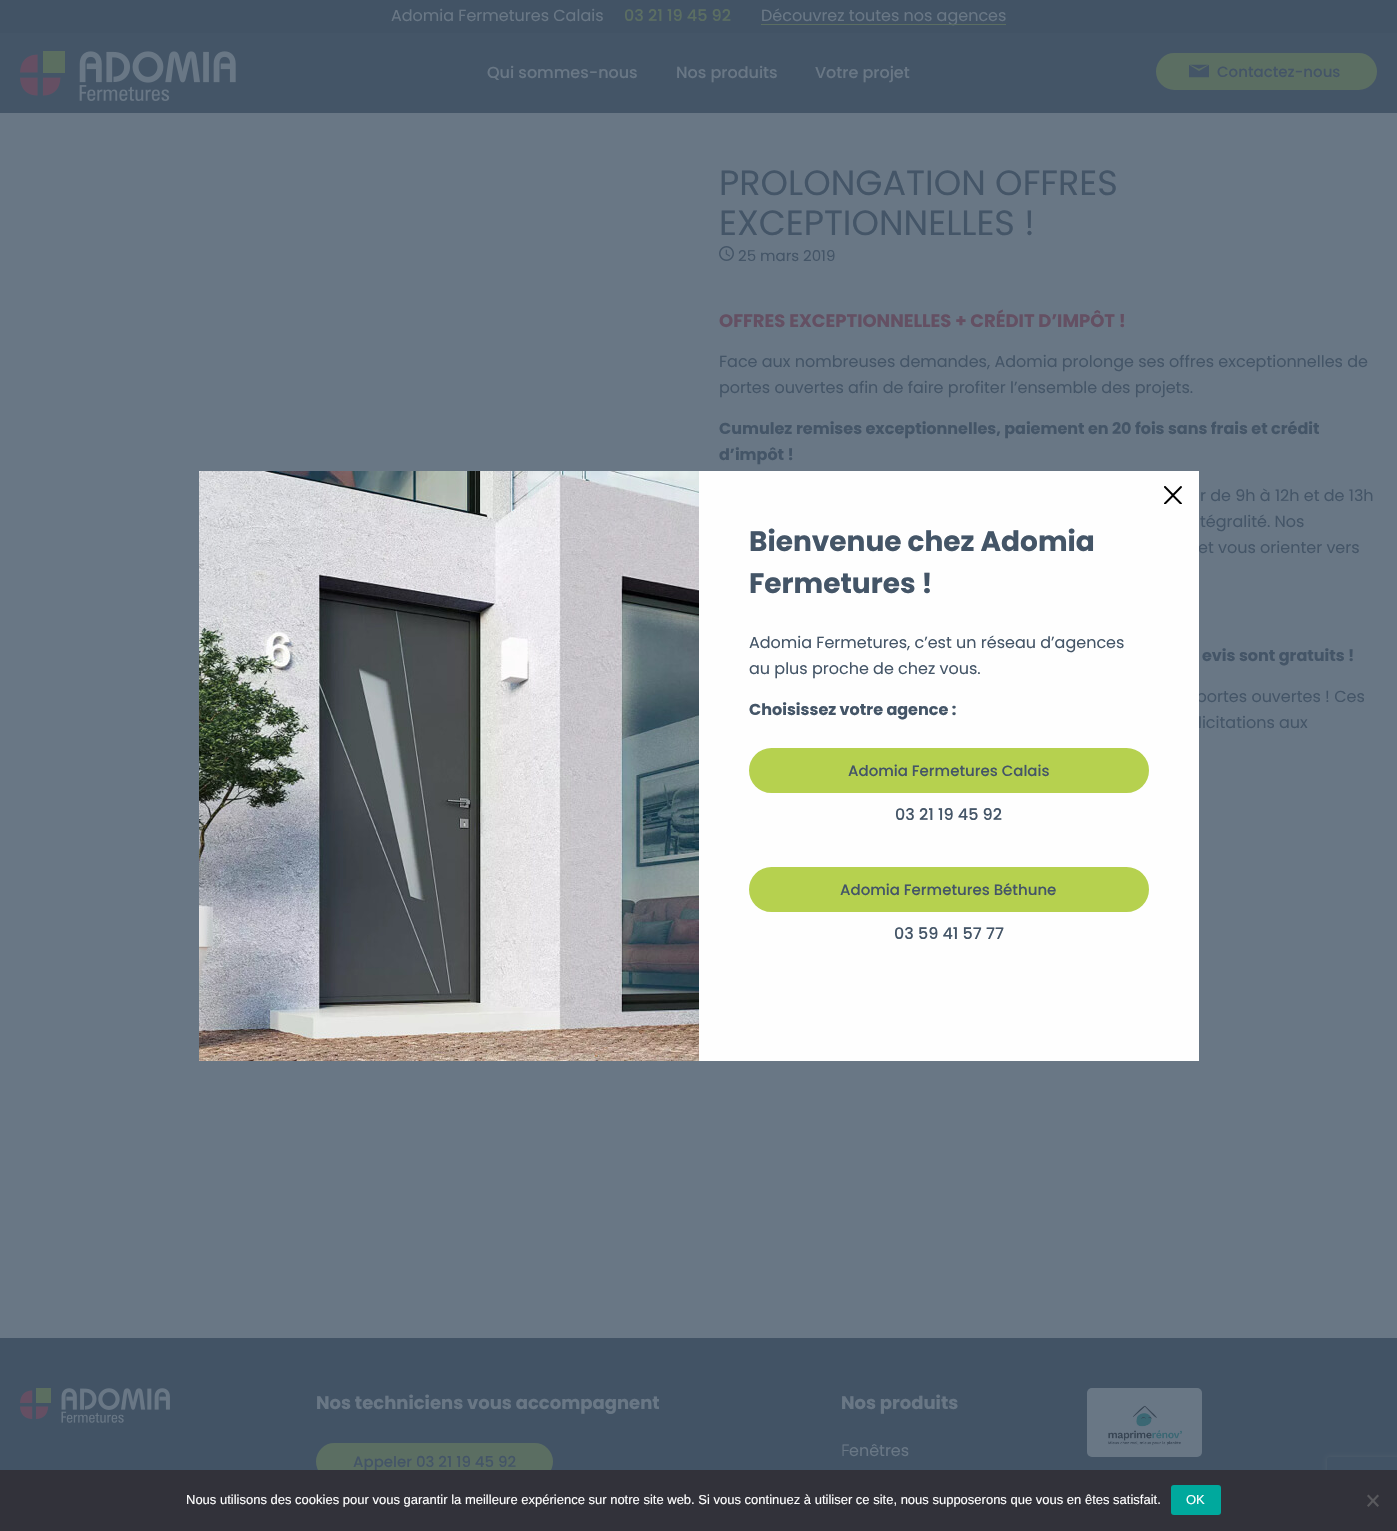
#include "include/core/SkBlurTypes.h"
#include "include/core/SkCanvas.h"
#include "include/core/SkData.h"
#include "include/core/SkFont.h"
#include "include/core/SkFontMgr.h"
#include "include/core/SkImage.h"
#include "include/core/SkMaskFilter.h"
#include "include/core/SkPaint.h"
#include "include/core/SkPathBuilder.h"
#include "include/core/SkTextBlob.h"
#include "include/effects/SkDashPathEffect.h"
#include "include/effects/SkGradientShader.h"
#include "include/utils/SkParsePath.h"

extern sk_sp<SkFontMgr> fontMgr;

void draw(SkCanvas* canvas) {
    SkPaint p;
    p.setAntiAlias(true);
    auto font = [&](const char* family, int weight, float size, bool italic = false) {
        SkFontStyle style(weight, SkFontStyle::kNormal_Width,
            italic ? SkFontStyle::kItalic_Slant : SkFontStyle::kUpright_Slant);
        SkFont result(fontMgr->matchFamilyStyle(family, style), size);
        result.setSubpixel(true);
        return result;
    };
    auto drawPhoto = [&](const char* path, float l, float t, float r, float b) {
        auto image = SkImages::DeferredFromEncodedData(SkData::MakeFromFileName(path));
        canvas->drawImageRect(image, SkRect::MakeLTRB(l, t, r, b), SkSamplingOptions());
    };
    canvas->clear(0xFF697785);
    p.setColor(0xFF425365);
    canvas->drawRect(SkRect::MakeLTRB(0, 0, 1397, 33), p);
    auto font1 = font("Poppins", 400, 16);
    p.setColor(0xFF697785);
    canvas->drawString("Adomia Fermetures Calais", 391, 21, font1, p);
    auto font2 = font("Poppins", 500, 16);
    p.setColor(0xFF5B6E62);
    canvas->drawString("03 21 19 45 92", 624, 21, font2, p);
    p.setColor(0xFF697785);
    canvas->drawString("Découvrez toutes nos agences", 761, 21, font1, p);
    p.setColor(0xFF5B6E62);
    canvas->drawRect(SkRect::MakeLTRB(761, 24, 1006, 25), p);
    p.setColor(0xFF445567);
    canvas->drawRect(SkRect::MakeLTRB(0, 33, 1397, 113), p);
    drawPhoto("media/1.png", 20, 51, 236, 101);
    p.setColor(0xFF697785);
    {
        const struct { const char* s; float x, y; } items[] = {
            {"Qui sommes-nous", 487, 78},
            {"Nos produits", 676, 78},
            {"Votre projet", 815, 78},
        };
        for (auto [s, x, y] : items) {
            canvas->drawString(s, x, y, font2, p);
        }
    }
    p.setColor(0xFF5B6E62);
    canvas->drawRoundRect(SkRect::MakeLTRB(1157, 54, 1376, 89), 17.5f, 17.5f, p);
    p.setStyle(SkPaint::kStroke_Style);
    p.setStrokeWidth(2);
    canvas->drawRoundRect(SkRect::MakeLTRB(1157, 54, 1376, 89), 17.5f, 17.5f, p);
    drawPhoto("media/2.png", 1189, 64, 1209, 78);
    auto font3 = font("Poppins", 500, 15);
    p.setStyle(SkPaint::kFill_Style);
    p.setColor(0xFF445567);
    canvas->drawString("Contactez-nous", 1217, 77, font3, p);
    auto font4 = font("Poppins", 400, 35);
    canvas->drawString("PROLONGATION OFFRES", 719, 195, font4, p);
    canvas->drawString("EXCEPTIONNELLES !", 719, 235, font4, p);
    drawPhoto("media/3.png", 719, 246, 734, 261);
    auto font5 = font("Poppins", 400, 15);
    canvas->drawString("25 mars 2019", 738, 261, font5, p);
    auto font6 = font("Poppins", 700, 18);
    p.setColor(0xFF645063);
    canvas->drawString("OFFRES EXCEPTIONNELLES + CRÉDIT D’IMPÔT !", 719, 327, font6, p);
    p.setColor(0xFF445567);
    canvas->drawString("Face aux nombreuses demandes, Adomia prolonge ses offres exceptionnelles de", 719, 367, font1, p);
    canvas->drawString("portes ouvertes afin de faire profiter l’ensemble des projets.", 719, 393, font1, p);
    auto font7 = font("Poppins", 700, 16);
    {
        const struct { const char* s; float x, y; } items[] = {
            {"Cumulez", 719, 434},
            {"remises exceptionnelles, paiement en 20 fois sans frais et crédit", 796, 434},
            {"d’impôt !", 719, 460},
        };
        for (auto [s, x, y] : items) {
            canvas->drawString(s, x, y, font7, p);
        }
    }
    {
        const struct { const char* s; float x, y; } items[] = {
            {"r de 9h à 12h et de 13h", 1200, 501},
            {"tégralité. Nos", 1200, 527},
            {"et vous orienter vers", 1198, 553},
        };
        for (auto [s, x, y] : items) {
            canvas->drawString(s, x, y, font1, p);
        }
    }
    canvas->drawString("evis sont gratuits !", 1202, 661, font7, p);
    canvas->drawString("portes ouvertes ! Ces", 1196, 702, font1, p);
    canvas->drawString("licitations aux", 1198, 728, font1, p);
    p.setColor(0xFFFEFEFE);
    canvas->drawRect(SkRect::MakeLTRB(699, 471, 1199, 1061), p);
    drawPhoto("media/4.png", 199, 471, 699, 1061);
    drawPhoto("media/5.png", 1164, 486, 1182, 504);
    auto font8 = font("Poppins", 700, 28);
    p.setColor(0xFF445567);
    canvas->drawString("Bienvenue chez Adomia", 749, 551, font8, p);
    canvas->drawString("Fermetures !", 749, 593, font8, p);
    canvas->drawString("Adomia Fermetures, c’est un réseau d’agences", 749, 648, font1, p);
    canvas->drawString("au plus proche de chez vous.", 749, 674, font1, p);
    canvas->drawString("Choisissez votre agence :", 749, 715, font7, p);
    p.setColor(0xFFB6D14F);
    canvas->drawRoundRect(SkRect::MakeLTRB(750, 749, 1148, 792), 21.5f, 21.5f, p);
    p.setStyle(SkPaint::kStroke_Style);
    canvas->drawRoundRect(SkRect::MakeLTRB(750, 749, 1148, 792), 21.5f, 21.5f, p);
    p.setStyle(SkPaint::kFill_Style);
    p.setColor(0xFF445567);
    canvas->drawString("Adomia Fermetures Calais", 848, 776, font3, p);
    canvas->drawString("03 21 19 45 92", 895, 820, font2, p);
    p.setColor(0xFFB6D14F);
    canvas->drawRoundRect(SkRect::MakeLTRB(750, 868, 1148, 911), 21.5f, 21.5f, p);
    p.setStyle(SkPaint::kStroke_Style);
    canvas->drawRoundRect(SkRect::MakeLTRB(750, 868, 1148, 911), 21.5f, 21.5f, p);
    p.setStyle(SkPaint::kFill_Style);
    p.setColor(0xFF445567);
    canvas->drawString("Adomia Fermetures Béthune", 840, 895, font3, p);
    canvas->drawString("03 59 41 57 77", 894, 939, font2, p);
    p.setColor(0xFF425365);
    canvas->drawRect(SkRect::MakeLTRB(0, 1338, 1397, 1470), p);
    drawPhoto("media/6.png", 20, 1388, 170, 1423);
    p.setColor(0xFF697785);
    canvas->drawString("Nos techniciens vous accompagnent", 316, 1409, font6, p);
    p.setColor(0xFF5B6E62);
    canvas->drawRoundRect(SkRect::MakeLTRB(317, 1444, 552, 1479), 17.5f, 17.5f, p);
    p.setStyle(SkPaint::kStroke_Style);
    canvas->drawRoundRect(SkRect::MakeLTRB(317, 1444, 552, 1479), 17.5f, 17.5f, p);
    p.setStyle(SkPaint::kFill_Style);
    p.setColor(0xFF445567);
    canvas->drawString("Appeler 03 21 19 45 92", 353, 1467, font3, p);
    p.setColor(0xFF697785);
    canvas->drawString("Nos produits", 841, 1409, font6, p);
    auto font9 = font("Noto Sans", 300, 16);
    canvas->drawString("F", 841, 1456, font9, p);
    canvas->drawString("enêtres", 849, 1456, font1, p);
    drawPhoto("media/7.png", 1087, 1388, 1202, 1457);
    canvas->save();
    canvas->clipPath(SkPathBuilder(SkPathFillType::kEvenOdd).moveTo(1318, 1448).lineTo(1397, 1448).lineTo(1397, 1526).lineTo(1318, 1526).close().moveTo(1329, 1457).lineTo(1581, 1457).cubicTo(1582, 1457, 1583, 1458, 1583, 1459).lineTo(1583, 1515).cubicTo(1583, 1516, 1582, 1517, 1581, 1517).lineTo(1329, 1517).cubicTo(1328, 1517, 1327, 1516, 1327, 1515).lineTo(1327, 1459).cubicTo(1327, 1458, 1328, 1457, 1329, 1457).close().detach(), true);
    p.setColor(0xFF505E6C);
    p.setMaskFilter(SkMaskFilter::MakeBlur(kNormal_SkBlurStyle, 2.5f));
    canvas->drawRoundRect(SkRect::MakeLTRB(1327, 1457, 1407, 1517), 2, 2, p);
    p.setMaskFilter(nullptr);
    canvas->restore();
    p.setColor(0xFF32323A);
    canvas->drawRect(SkRect::MakeLTRB(0, 1470, 1397, 1531), p);
    auto font10 = font("Liberation Sans", 400, 13);
    p.setColor(0xFFFFFFFF);
    canvas->drawString("Nous utilisons des cookies pour vous garantir la meilleure expérience sur notre site web. Si vous continuez à utiliser ce site, nous supposerons que vous en êtes satisfait.", 186, 1504, font10, p);
    p.setColor(0xFF00A99D);
    canvas->drawRoundRect(SkRect::MakeLTRB(1171, 1485, 1221, 1515), 3, 3, p);
    p.setColor(0xFFFFFFFF);
    canvas->drawString("OK", 1186, 1504, font10, p);
    p.setColor(0xFF59595D);
    canvas->drawPath(SkPathBuilder().moveTo(1377.5f, 1494.5f).lineTo(1379, 1496).lineTo(1368.5f, 1507).lineTo(1367, 1505.5f).close().detach(), p);
    canvas->drawPath(SkPathBuilder().moveTo(1367, 1496).lineTo(1368.5f, 1494.5f).lineTo(1379, 1505.5f).lineTo(1377.5f, 1507).close().detach(), p);
}
